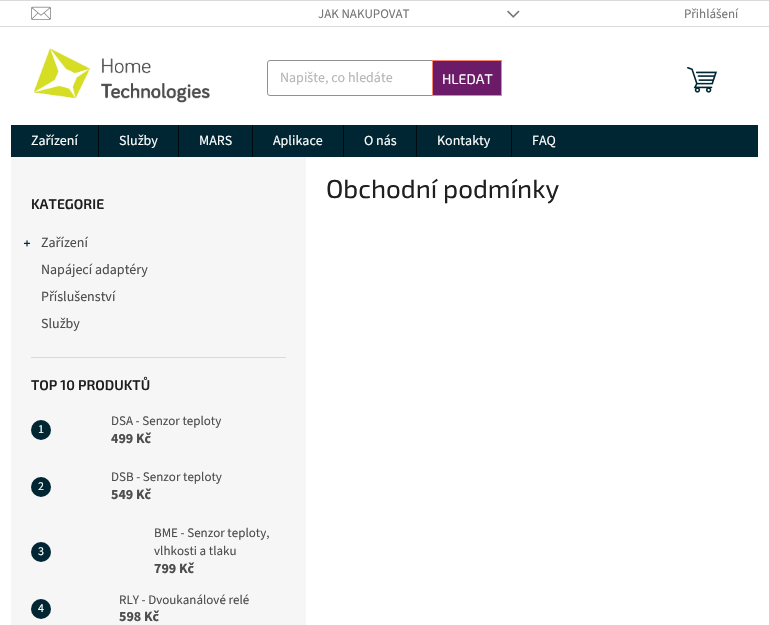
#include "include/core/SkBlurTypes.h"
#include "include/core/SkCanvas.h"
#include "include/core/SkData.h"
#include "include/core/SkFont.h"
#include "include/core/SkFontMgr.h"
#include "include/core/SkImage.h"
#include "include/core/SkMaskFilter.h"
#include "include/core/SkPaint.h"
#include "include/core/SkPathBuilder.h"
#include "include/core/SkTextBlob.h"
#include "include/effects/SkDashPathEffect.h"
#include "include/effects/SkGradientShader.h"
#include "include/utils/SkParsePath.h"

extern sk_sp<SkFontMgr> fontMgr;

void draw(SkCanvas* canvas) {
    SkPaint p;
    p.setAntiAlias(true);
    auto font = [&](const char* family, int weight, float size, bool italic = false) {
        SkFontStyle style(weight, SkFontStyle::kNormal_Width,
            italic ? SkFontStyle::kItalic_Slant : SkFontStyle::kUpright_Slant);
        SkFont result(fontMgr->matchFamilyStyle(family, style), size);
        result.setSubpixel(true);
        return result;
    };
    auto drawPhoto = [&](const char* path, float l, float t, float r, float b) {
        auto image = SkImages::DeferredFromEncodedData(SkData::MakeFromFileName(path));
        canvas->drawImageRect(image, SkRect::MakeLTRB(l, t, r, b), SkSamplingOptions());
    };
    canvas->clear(0xFFFFFFFF);
    p.setColor(0xFFDADADA);
    canvas->drawRect(SkRect::MakeLTRB(0, 0, 769, 1), p);
    canvas->drawRect(SkRect::MakeLTRB(0, 26, 769, 27), p);
    drawPhoto("media/1.png", 31, 6, 51, 20);
    auto font1 = font("Source Sans 3", 400, 13);
    p.setColor(0xFF767676);
    canvas->drawString("JAK NAKUPOVAT", 318, 18, font1, p);
    drawPhoto("media/2.png", 507, 10, 520, 18);
    canvas->drawString("Přihlášení", 684, 18, font1, p);
    drawPhoto("media/3.png", 33, 48, 210, 103);
    p.setStyle(SkPaint::kStroke_Style);
    p.setStrokeWidth(1);
    p.setColor(0xFF919191);
    canvas->drawRoundRect(SkRect::MakeLTRB(267.5f, 60.5f, 501.5f, 95.5f), 2.5f, 2.5f, p);
    auto font2 = font("Source Sans 3", 400, 14);
    p.setStyle(SkPaint::kFill_Style);
    p.setColor(0xFFB6B6B6);
    canvas->drawString("Napište, co hledáte", 280, 82, font2, p);
    p.setColor(0xFF6C1B68);
    canvas->drawRect(SkRect::MakeLTRB(432.5f, 60.5f, 501.5f, 95.5f), p);
    p.setStyle(SkPaint::kStroke_Style);
    p.setColor(0xFFF58673);
    canvas->drawRect(SkRect::MakeLTRB(432.5f, 60.5f, 501.5f, 95.5f), p);
    auto font3 = font("Exo 2", 400, 14);
    p.setStyle(SkPaint::kFill_Style);
    p.setColor(0xFFFFFFFF);
    canvas->drawString("HLEDAT", 442, 84, font3, p);
    drawPhoto("media/4.png", 687, 67, 717, 93);
    p.setColor(0xFF002633);
    canvas->drawRect(SkRect::MakeLTRB(11, 125, 758, 157), p);
    p.setColor(0xFFFFFFFF);
    canvas->drawString("Zařízení", 31, 145, font2, p);
    p.setColor(0xFF000B0F);
    canvas->drawRect(SkRect::MakeLTRB(98, 125, 99, 157), p);
    p.setColor(0xFFFFFFFF);
    canvas->drawString("Služby", 119, 145, font2, p);
    p.setColor(0xFF000B0F);
    canvas->drawRect(SkRect::MakeLTRB(178, 125, 179, 157), p);
    p.setColor(0xFFFFFFFF);
    canvas->drawString("MARS", 199, 145, font2, p);
    p.setColor(0xFF000B0F);
    canvas->drawRect(SkRect::MakeLTRB(252, 125, 253, 157), p);
    p.setColor(0xFFFFFFFF);
    canvas->drawString("Aplikace", 273, 145, font2, p);
    p.setColor(0xFF000B0F);
    canvas->drawRect(SkRect::MakeLTRB(343, 125, 344, 157), p);
    p.setColor(0xFFFFFFFF);
    canvas->drawString("O nás", 364, 145, font2, p);
    p.setColor(0xFF000B0F);
    canvas->drawRect(SkRect::MakeLTRB(416, 125, 417, 157), p);
    p.setColor(0xFFFFFFFF);
    canvas->drawString("Kontakty", 437, 145, font2, p);
    p.setColor(0xFF000B0F);
    canvas->drawRect(SkRect::MakeLTRB(511, 125, 512, 157), p);
    p.setColor(0xFFFFFFFF);
    canvas->drawString("FAQ", 532, 145, font2, p);
    auto font4 = font("Exo 2", 400, 26);
    p.setColor(0xFF1F1F1F);
    canvas->drawString("Obchodní podmínky", 326, 198, font4, p);
    p.setColor(0xFFF6F6F6);
    canvas->drawRect(SkRect::MakeLTRB(11, 157, 306, 625), p);
    p.setColor(0xFFDADADA);
    canvas->drawRect(SkRect::MakeLTRB(31, 357, 286, 358), p);
    auto font5 = font("Exo 2", 600, 14);
    p.setColor(0xFF1F1F1F);
    canvas->drawString("KATEGORIE", 31, 209, font5, p);
    drawPhoto("media/5.png", 24, 240, 30, 247);
    p.setColor(0xFF4D4D4D);
    {
        const struct { const char* s; float x, y; } items[] = {
            {"Zařízení", 41, 247},
            {"Napájecí adaptéry", 41, 274},
            {"Příslušenství", 41, 301},
            {"Služby", 41, 328},
        };
        for (auto [s, x, y] : items) {
            canvas->drawString(s, x, y, font2, p);
        }
    }
    p.setColor(0xFF1F1F1F);
    canvas->drawString("TOP 10 PRODUKTŮ", 31, 390, font5, p);
    p.setColor(0xFF002633);
    canvas->drawCircle(41, 430, 10, p);
    auto font6 = font("Source Sans 3", 400, 12);
    p.setColor(0xFFFFFFFF);
    canvas->drawString("1", 38, 433, font6, p);
    p.setColor(0xFF4D4D4D);
    canvas->drawString("DSA - Senzor teploty", 111, 425, font1, p);
    auto font7 = font("Source Sans 3", 700, 14);
    canvas->drawString("499 Kč", 111, 443, font7, p);
    p.setColor(0xFF002633);
    canvas->drawCircle(41, 487, 10, p);
    p.setColor(0xFFFFFFFF);
    canvas->drawString("2", 38, 490, font6, p);
    p.setColor(0xFF4D4D4D);
    canvas->drawString("DSB - Senzor teploty", 111, 481, font1, p);
    canvas->drawString("549 Kč", 111, 499, font7, p);
    p.setColor(0xFF002633);
    canvas->drawCircle(41, 552, 10, p);
    p.setColor(0xFFFFFFFF);
    canvas->drawString("3", 38, 555, font6, p);
    p.setColor(0xFF4D4D4D);
    canvas->drawString("BME - Senzor teploty,", 154, 537, font1, p);
    canvas->drawString("vlhkosti a tlaku", 154, 555, font1, p);
    canvas->drawString("799 Kč", 154, 573, font7, p);
    p.setColor(0xFF002633);
    canvas->drawCircle(41, 609, 10, p);
    p.setColor(0xFFFFFFFF);
    canvas->drawString("4", 38, 612, font6, p);
    p.setColor(0xFF4D4D4D);
    canvas->drawString("RLY - Dvoukanálové relé", 119, 604, font1, p);
    canvas->drawString("598 Kč", 119, 621, font7, p);
}
